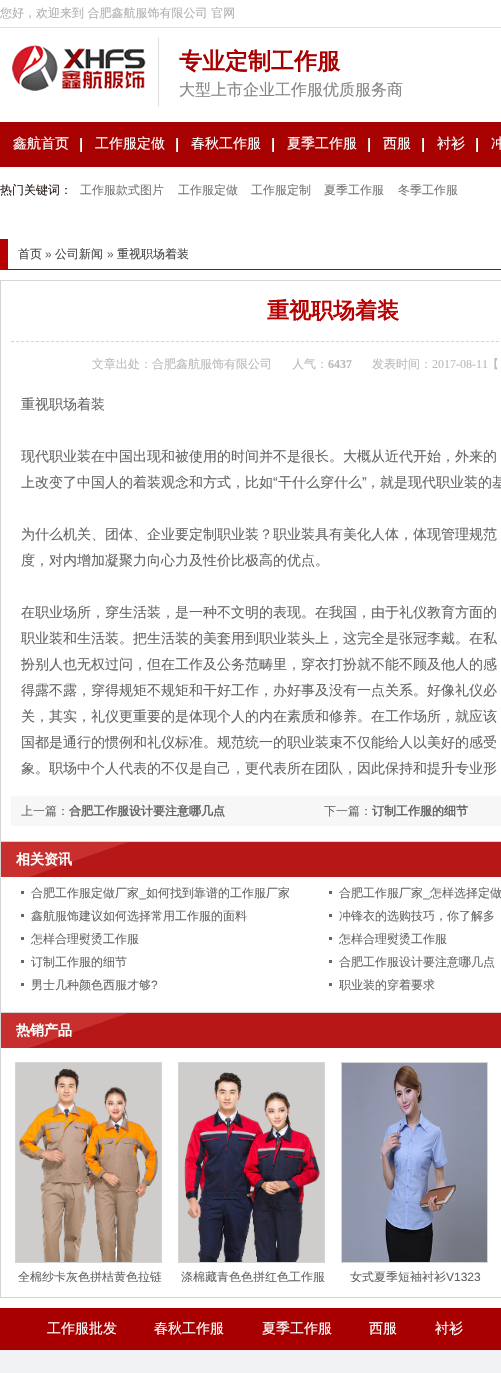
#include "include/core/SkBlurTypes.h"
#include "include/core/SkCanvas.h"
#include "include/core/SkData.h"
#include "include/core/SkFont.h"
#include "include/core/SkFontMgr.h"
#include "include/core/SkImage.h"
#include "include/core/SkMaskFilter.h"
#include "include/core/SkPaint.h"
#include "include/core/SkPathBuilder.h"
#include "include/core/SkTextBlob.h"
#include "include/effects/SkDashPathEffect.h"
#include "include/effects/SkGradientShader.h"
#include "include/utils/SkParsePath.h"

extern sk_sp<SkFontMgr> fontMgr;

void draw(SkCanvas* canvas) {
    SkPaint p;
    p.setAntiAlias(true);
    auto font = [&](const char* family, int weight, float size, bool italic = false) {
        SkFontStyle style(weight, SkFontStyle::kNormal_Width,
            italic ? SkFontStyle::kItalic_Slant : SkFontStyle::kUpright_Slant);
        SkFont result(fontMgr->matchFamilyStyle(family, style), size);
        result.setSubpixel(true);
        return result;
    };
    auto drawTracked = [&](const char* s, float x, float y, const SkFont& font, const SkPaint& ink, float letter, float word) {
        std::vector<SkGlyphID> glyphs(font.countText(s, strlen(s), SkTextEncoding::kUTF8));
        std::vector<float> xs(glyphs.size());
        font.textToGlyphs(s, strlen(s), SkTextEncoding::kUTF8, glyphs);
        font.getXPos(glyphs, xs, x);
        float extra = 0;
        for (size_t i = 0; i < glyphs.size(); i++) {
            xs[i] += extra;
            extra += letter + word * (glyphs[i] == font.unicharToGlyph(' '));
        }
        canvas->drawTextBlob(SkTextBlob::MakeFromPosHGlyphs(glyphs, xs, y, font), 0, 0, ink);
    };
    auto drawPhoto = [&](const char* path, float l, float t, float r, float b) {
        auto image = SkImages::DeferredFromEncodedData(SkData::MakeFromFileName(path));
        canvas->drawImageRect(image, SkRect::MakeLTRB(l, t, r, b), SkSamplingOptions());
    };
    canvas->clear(0xFFFFFFFF);
    p.setColor(0xFFE1E1E1);
    canvas->drawRect(SkRect::MakeLTRB(0, 27, 501, 28), p);
    auto font1 = font("WenQuanYi Zen Hei", 500, 12);
    p.setColor(0xFFB1B1B1);
    canvas->drawString("您好，欢迎来到 合肥鑫航服饰有限公司 官网", 0, 17, font1, p);
    p.setColor(0xFFDDDDDD);
    canvas->drawRect(SkRect::MakeLTRB(158, 38, 159, 106), p);
    drawPhoto("media/1.png", 12, 45, 146, 91);
    auto font2 = font("WenQuanYi Zen Hei", 700, 23);
    p.setColor(0xFFA80000);
    canvas->drawString("专业定制工作服", 179, 69, font2, p);
    auto font3 = font("WenQuanYi Zen Hei", 500, 16);
    p.setColor(0xFF858585);
    canvas->drawString("大型上市企业工作服优质服务商", 179, 95, font3, p);
    p.setColor(0xFFA80101);
    canvas->drawRect(SkRect::MakeLTRB(0, 122, 501, 167), p);
    drawPhoto("media/2.png", 80, 138, 82, 152);
    auto font4 = font("WenQuanYi Zen Hei", 500, 14);
    p.setColor(0xFFFFFFFF);
    canvas->drawString("鑫航首页", 13, 148, font4, p);
    drawPhoto("media/2.png", 176, 138, 178, 152);
    canvas->drawString("工作服定做", 95, 148, font4, p);
    drawPhoto("media/2.png", 272, 138, 274, 152);
    canvas->drawString("春秋工作服", 191, 148, font4, p);
    drawPhoto("media/2.png", 368, 138, 370, 152);
    canvas->drawString("夏季工作服", 287, 148, font4, p);
    drawPhoto("media/2.png", 422, 138, 424, 152);
    canvas->drawString("西服", 383, 148, font4, p);
    drawPhoto("media/2.png", 476, 138, 478, 152);
    canvas->drawString("衬衫", 437, 148, font4, p);
    canvas->drawString("冲", 491, 148, font4, p);
    p.setColor(0xFF291E1A);
    canvas->drawString("热门关键词：", 0, 194, font1, p);
    p.setColor(0xFF787878);
    {
        const struct { const char* s; float x, y; } items[] = {
            {"工作服款式图片", 80, 194},
            {"工作服定做", 178, 194},
            {"工作服定制", 251, 194},
            {"夏季工作服", 324, 194},
            {"冬季工作服", 398, 194},
        };
        for (auto [s, x, y] : items) {
            canvas->drawString(s, x, y, font1, p);
        }
    }
    p.setColor(0xFFB70100);
    canvas->drawRect(SkRect::MakeLTRB(0, 269, 501, 270), p);
    canvas->drawRect(SkRect::MakeLTRB(0, 239, 8, 270), p);
    p.setColor(0xFF444444);
    canvas->drawString("首页", 18, 258, font1, p);
    auto font5 = font("Liberation Sans", 400, 12);
    p.setColor(0xFF666666);
    canvas->drawString("»", 45, 258, font5, p);
    p.setColor(0xFF444444);
    canvas->drawString("公司新闻", 55, 258, font1, p);
    p.setColor(0xFF666666);
    canvas->drawString("»", 107, 258, font5, p);
    p.setColor(0xFF444444);
    canvas->drawString("重视职场着装", 117, 258, font1, p);
    p.setStyle(SkPaint::kStroke_Style);
    p.setStrokeWidth(1);
    p.setColor(0xFFD5D5D5);
    canvas->drawRect(SkRect::MakeLTRB(0.5f, 280.5f, 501.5f, 1297.5f), p);
    p.setPathEffect(SkDashPathEffect::Make({{3, 2}}, 0));
    canvas->drawPath(SkPathBuilder().moveTo(11, 341.5f).lineTo(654, 341.5f).detach(), p);
    p.setPathEffect(nullptr);
    auto font6 = font("WenQuanYi Zen Hei", 700, 22);
    p.setStyle(SkPaint::kFill_Style);
    p.setColor(0xFFB70100);
    canvas->drawString("重视职场着装", 267, 318, font6, p);
    p.setColor(0xFFBCBBBB);
    canvas->drawString("文章出处：合肥鑫航服饰有限公司", 92, 368, font1, p);
    canvas->drawString("人气：", 292, 368, font1, p);
    auto font7 = font("Liberation Serif", 700, 12);
    canvas->drawString("6437", 328, 368, font7, p);
    canvas->drawString("发表时间：", 372, 368, font1, p);
    auto font8 = font("Liberation Serif", 400, 12);
    canvas->drawString("2017-08-11", 432, 368, font8, p);
    canvas->drawString("【", 487, 368, font1, p);
    p.setColor(0xFF666666);
    {
        const struct { const char* s; float x, y; } items[] = {
            {"重视职场着装", 21, 409},
            {"现代职业装在中国出现和被使用的时间并不是很长。大概从近代开始，外来的", 21, 461},
            {"上改变了中国人的着装观念和方式，比如", 21, 487},
        };
        for (auto [s, x, y] : items) {
            canvas->drawString(s, x, y, font4, p);
        }
    }
    auto font9 = font("Liberation Sans", 400, 14);
    canvas->drawString("“", 273, 487, font9, p);
    canvas->drawString("干什么穿什么", 278, 487, font4, p);
    canvas->drawString("”", 362, 487, font9, p);
    {
        const struct { const char* s; float x, y; } items[] = {
            {"，就是现代职业装的基", 366, 487},
            {"为什么机关、团体、企业要定制职业装？职业装具有美化人体，体现管理规范", 21, 539},
            {"度，对内增加凝聚力向心力及性价比极高的优点。", 21, 565},
            {"在职业场所，穿生活装，是一种不文明的表现。在我国，由于礼仪教育方面的", 21, 617},
            {"职业装和生活装。把生活装的美套用到职业装头上，这完全是张冠李戴。在私", 21, 643},
        };
        for (auto [s, x, y] : items) {
            canvas->drawString(s, x, y, font4, p);
        }
    }
    drawTracked("扮别人也无权过问，但在工作及公务范畴里，穿衣打扮就不能不顾及他人的感", 21, 669, font4, p, 0, 10);
    {
        const struct { const char* s; float x, y; } items[] = {
            {"得露不露，穿得规矩不规矩和干好工作，办好事及没有一点关系。好像礼仪必", 21, 695},
            {"关，其实，礼仪更重要的是体现个人的内在素质和修养。在工作场所，就应该", 21, 721},
            {"国都是通行的惯例和礼仪标准。规范统一的职业装束不仅能给人以美好的感受", 21, 747},
            {"象。职场中个人代表的不仅是自己，更代表所在团队，因此保持和提升专业形", 21, 773},
        };
        for (auto [s, x, y] : items) {
            canvas->drawString(s, x, y, font4, p);
        }
    }
    p.setColor(0xFFF7F7F7);
    canvas->drawRect(SkRect::MakeLTRB(11, 796, 501, 826), p);
    p.setColor(0xFF666666);
    canvas->drawString("上一篇：", 21, 815, font1, p);
    auto font10 = font("WenQuanYi Zen Hei", 700, 12);
    canvas->drawString("合肥工作服设计要注意哪几点", 69, 815, font10, p);
    canvas->drawString("下一篇：", 324, 815, font1, p);
    canvas->drawString("订制工作服的细节", 372, 815, font10, p);
    p.setColor(0xFFB71717);
    canvas->drawRect(SkRect::MakeLTRB(131, 842, 501, 877), p);
    drawPhoto("media/3.png", 1, 842, 131, 877);
    p.setColor(0xFFD5D5D5);
    canvas->drawRect(SkRect::MakeLTRB(1, 841, 501, 842), p);
    auto font11 = font("WenQuanYi Zen Hei", 700, 14);
    p.setColor(0xFFFFFFFF);
    canvas->drawString("相关资讯", 16, 864, font11, p);
    p.setColor(0xFF666666);
    canvas->drawRect(SkRect::MakeLTRB(21, 891, 24, 894), p);
    canvas->drawString("合肥工作服定做厂家", 31, 897, font1, p);
    canvas->drawString("_", 139, 897, font5, p);
    canvas->drawString("如何找到靠谱的工作服厂家", 146, 897, font1, p);
    canvas->drawRect(SkRect::MakeLTRB(329, 891, 332, 894), p);
    canvas->drawString("合肥工作服厂家", 339, 897, font1, p);
    canvas->drawString("_", 423, 897, font5, p);
    canvas->drawString("怎样选择定做", 430, 897, font1, p);
    canvas->drawRect(SkRect::MakeLTRB(21, 914, 24, 917), p);
    canvas->drawString("鑫航服饰建议如何选择常用工作服的面料", 31, 920, font1, p);
    canvas->drawRect(SkRect::MakeLTRB(329, 914, 332, 917), p);
    canvas->drawString("冲锋衣的选购技巧，你了解多", 339, 920, font1, p);
    canvas->drawRect(SkRect::MakeLTRB(21, 937, 24, 940), p);
    canvas->drawString("怎样合理熨烫工作服", 31, 943, font1, p);
    canvas->drawRect(SkRect::MakeLTRB(329, 937, 332, 940), p);
    canvas->drawString("怎样合理熨烫工作服", 339, 943, font1, p);
    canvas->drawRect(SkRect::MakeLTRB(21, 960, 24, 963), p);
    canvas->drawString("订制工作服的细节", 31, 966, font1, p);
    canvas->drawRect(SkRect::MakeLTRB(329, 960, 332, 963), p);
    canvas->drawString("合肥工作服设计要注意哪几点", 339, 966, font1, p);
    canvas->drawRect(SkRect::MakeLTRB(21, 983, 24, 986), p);
    canvas->drawString("男士几种颜色西服才够", 31, 989, font1, p);
    canvas->drawString("?", 151, 989, font5, p);
    canvas->drawRect(SkRect::MakeLTRB(329, 983, 332, 986), p);
    canvas->drawString("职业装的穿着要求", 339, 989, font1, p);
    p.setColor(0xFFB71717);
    canvas->drawRect(SkRect::MakeLTRB(131, 1013, 501, 1048), p);
    drawPhoto("media/3.png", 1, 1013, 131, 1048);
    p.setColor(0xFFD5D5D5);
    canvas->drawRect(SkRect::MakeLTRB(1, 1012, 501, 1013), p);
    p.setColor(0xFFFFFFFF);
    canvas->drawString("热销产品", 16, 1035, font11, p);
    p.setStyle(SkPaint::kStroke_Style);
    p.setColor(0xFFD5D5D5);
    canvas->drawRect(SkRect::MakeLTRB(15.5f, 1062.5f, 161.5f, 1262.5f), p);
    drawPhoto("media/4.png", 16, 1063, 161, 1262);
    canvas->save();
    canvas->clipRect(SkRect::MakeLTRB(15, 1263, 164, 1282));
    p.setStyle(SkPaint::kFill_Style);
    p.setColor(0xFF666666);
    canvas->drawString("全棉纱卡灰色拼桔黄色拉链", 18, 1281, font1, p);
    canvas->restore();
    p.setStyle(SkPaint::kStroke_Style);
    p.setColor(0xFFD5D5D5);
    canvas->drawRect(SkRect::MakeLTRB(178.5f, 1062.5f, 324.5f, 1262.5f), p);
    drawPhoto("media/5.png", 179, 1063, 324, 1262);
    canvas->save();
    canvas->clipRect(SkRect::MakeLTRB(178, 1263, 327, 1282));
    p.setStyle(SkPaint::kFill_Style);
    p.setColor(0xFF666666);
    canvas->drawString("涤棉藏青色色拼红色工作服", 181, 1281, font1, p);
    canvas->restore();
    p.setStyle(SkPaint::kStroke_Style);
    p.setColor(0xFFD5D5D5);
    canvas->drawRect(SkRect::MakeLTRB(341.5f, 1062.5f, 487.5f, 1262.5f), p);
    drawPhoto("media/6.png", 342, 1063, 487, 1262);
    canvas->save();
    canvas->clipRect(SkRect::MakeLTRB(341, 1263, 490, 1282));
    p.setStyle(SkPaint::kFill_Style);
    p.setColor(0xFF666666);
    canvas->drawString("女式夏季短袖衬衫", 350, 1281, font1, p);
    canvas->restore();
    canvas->drawString("V1323", 446, 1281, font5, p);
    p.setColor(0xFFF1F2F4);
    canvas->drawRect(SkRect::MakeLTRB(0, 1350, 501, 1373), p);
    p.setColor(0xFFA80000);
    canvas->drawRect(SkRect::MakeLTRB(0, 1308, 501, 1350), p);
    p.setColor(0xFFFFFFFF);
    {
        const struct { const char* s; float x, y; } items[] = {
            {"工作服批发", 47, 1333},
            {"春秋工作服", 154, 1333},
            {"夏季工作服", 262, 1333},
            {"西服", 369, 1333},
            {"衬衫", 435, 1333},
        };
        for (auto [s, x, y] : items) {
            canvas->drawString(s, x, y, font4, p);
        }
    }
}
